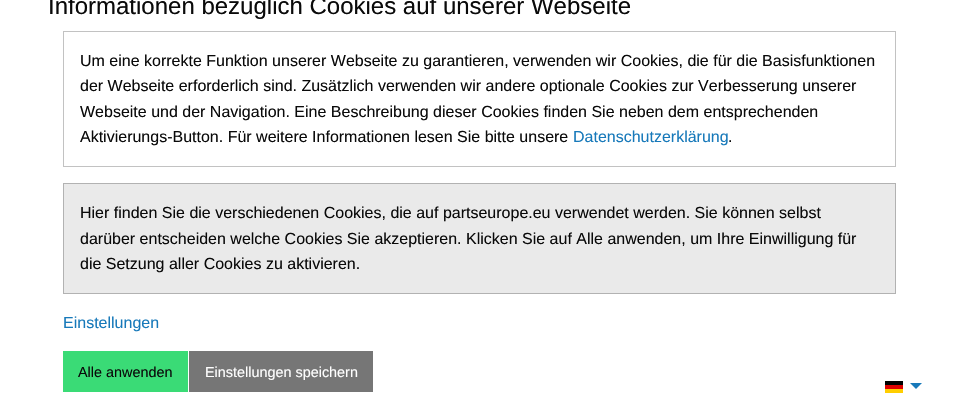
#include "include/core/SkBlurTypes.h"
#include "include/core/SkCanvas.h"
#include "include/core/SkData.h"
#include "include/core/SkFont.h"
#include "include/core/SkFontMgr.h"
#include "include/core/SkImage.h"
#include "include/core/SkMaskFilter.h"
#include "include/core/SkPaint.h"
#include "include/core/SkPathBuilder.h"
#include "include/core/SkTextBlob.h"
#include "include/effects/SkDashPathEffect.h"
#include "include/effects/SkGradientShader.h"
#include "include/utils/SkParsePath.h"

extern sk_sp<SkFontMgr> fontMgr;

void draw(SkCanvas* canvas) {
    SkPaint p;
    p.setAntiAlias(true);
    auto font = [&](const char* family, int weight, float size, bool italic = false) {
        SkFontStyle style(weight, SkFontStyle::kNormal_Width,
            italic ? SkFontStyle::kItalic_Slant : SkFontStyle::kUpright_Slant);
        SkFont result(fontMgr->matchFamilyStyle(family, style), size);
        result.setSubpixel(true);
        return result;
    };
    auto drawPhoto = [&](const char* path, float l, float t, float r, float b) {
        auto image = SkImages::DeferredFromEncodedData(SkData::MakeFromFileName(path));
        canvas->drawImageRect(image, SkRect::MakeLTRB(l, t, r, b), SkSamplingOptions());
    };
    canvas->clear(0xFFFFFFFF);
    auto font1 = font("Liberation Sans", 400, 24);
    p.setColor(0xFF0A0A0A);
    canvas->drawString("Informationen bezüglich Cookies auf unserer Webseite", 48, 14, font1, p);
    drawPhoto("media/1.png", 885, 381, 903, 393);
    p.setColor(0xFF1779BA);
    canvas->drawPath(SkPathBuilder().moveTo(910, 383).lineTo(922, 383).lineTo(916, 389).close().detach(), p);
    p.setStyle(SkPaint::kStroke_Style);
    p.setStrokeWidth(1);
    p.setColor(0xFFC2C2C2);
    canvas->drawRect(SkRect::MakeLTRB(63.5f, 31.5f, 895.5f, 166.5f), p);
    auto font2 = font("Liberation Sans", 400, 16);
    p.setStyle(SkPaint::kFill_Style);
    p.setColor(0xFF0A0A0A);
    {
        const struct { const char* s; float x, y; } items[] = {
            {"Um eine korrekte Funktion unserer Webseite zu garantieren, verwenden wir Cookies, die für die Basisfunktionen", 80, 66},
            {"der Webseite erforderlich sind. Zusätzlich verwenden wir andere optionale Cookies zur Verbesserung unserer", 80, 91},
            {"Webseite und der Navigation. Eine Beschreibung dieser Cookies finden Sie neben dem entsprechenden", 80, 117},
            {"Aktivierungs-Button. Für weitere Informationen lesen Sie bitte unsere", 80, 142},
        };
        for (auto [s, x, y] : items) {
            canvas->drawString(s, x, y, font2, p);
        }
    }
    p.setColor(0xFF1779BA);
    canvas->drawString("Datenschutzerklärung", 573, 142, font2, p);
    p.setColor(0xFF0A0A0A);
    canvas->drawString(".", 728, 142, font2, p);
    p.setColor(0xFFEAEAEA);
    canvas->drawRect(SkRect::MakeLTRB(63.5f, 183.5f, 895.5f, 293.5f), p);
    p.setStyle(SkPaint::kStroke_Style);
    p.setColor(0xFFB2B2B2);
    canvas->drawRect(SkRect::MakeLTRB(63.5f, 183.5f, 895.5f, 293.5f), p);
    p.setStyle(SkPaint::kFill_Style);
    p.setColor(0xFF0A0A0A);
    {
        const struct { const char* s; float x, y; } items[] = {
            {"Hier finden Sie die verschiedenen Cookies, die auf partseurope.eu verwendet werden. Sie können selbst", 80, 218},
            {"darüber entscheiden welche Cookies Sie akzeptieren. Klicken Sie auf Alle anwenden, um Ihre Einwilligung für", 80, 244},
            {"die Setzung aller Cookies zu aktivieren.", 80, 269},
        };
        for (auto [s, x, y] : items) {
            canvas->drawString(s, x, y, font2, p);
        }
    }
    p.setColor(0xFF1779BA);
    canvas->drawString("Einstellungen", 63, 328, font2, p);
    p.setColor(0xFF3ADB76);
    canvas->drawRect(SkRect::MakeLTRB(63, 351, 188, 392), p);
    auto font3 = font("Liberation Sans", 400, 14.4f);
    p.setColor(0xFF0A0A0A);
    canvas->drawString("Alle anwenden", 78, 377, font3, p);
    p.setColor(0xFF767676);
    canvas->drawRect(SkRect::MakeLTRB(189, 351, 373, 392), p);
    p.setColor(0xFFFEFEFE);
    canvas->drawString("Einstellungen speichern", 205, 377, font3, p);
}
